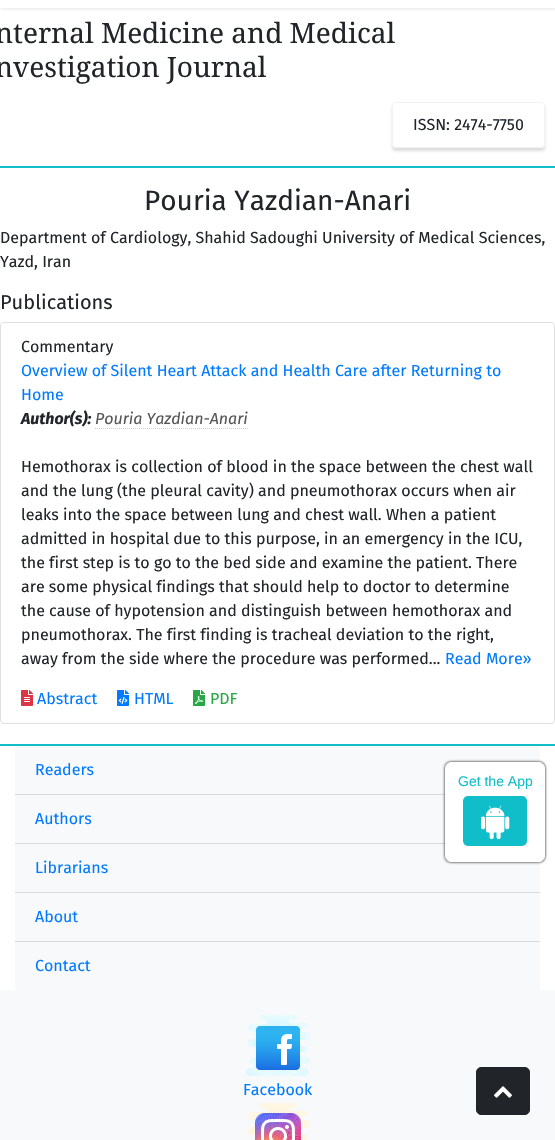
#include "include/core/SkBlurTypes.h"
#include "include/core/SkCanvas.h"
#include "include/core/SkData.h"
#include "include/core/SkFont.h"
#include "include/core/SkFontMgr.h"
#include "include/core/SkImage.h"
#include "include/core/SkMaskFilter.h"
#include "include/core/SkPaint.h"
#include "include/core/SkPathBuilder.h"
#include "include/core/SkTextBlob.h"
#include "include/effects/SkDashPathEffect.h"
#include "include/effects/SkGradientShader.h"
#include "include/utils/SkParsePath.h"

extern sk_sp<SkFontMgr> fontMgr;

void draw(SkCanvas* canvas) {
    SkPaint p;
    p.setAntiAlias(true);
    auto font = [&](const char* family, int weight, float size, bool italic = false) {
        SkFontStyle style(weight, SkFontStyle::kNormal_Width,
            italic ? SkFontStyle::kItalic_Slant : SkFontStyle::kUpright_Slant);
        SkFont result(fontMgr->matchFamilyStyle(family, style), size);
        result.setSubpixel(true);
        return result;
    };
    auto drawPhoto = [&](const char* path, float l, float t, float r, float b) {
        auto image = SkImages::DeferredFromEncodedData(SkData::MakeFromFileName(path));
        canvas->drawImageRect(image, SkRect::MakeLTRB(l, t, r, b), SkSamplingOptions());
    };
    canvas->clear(0xFFFFFFFF);
    canvas->save();
    canvas->clipRect(SkRect::MakeLTRB(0, 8, 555, 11));
    p.setColor(0x1A000000);
    p.setMaskFilter(SkMaskFilter::MakeBlur(kNormal_SkBlurStyle, 2));
    canvas->drawRect(SkRect::MakeLTRB(1, -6, 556, 9), p);
    p.setMaskFilter(nullptr);
    canvas->restore();
    p.setColor(0xFF10BECA);
    canvas->drawRect(SkRect::MakeLTRB(0, 166, 555, 168), p);
    auto font1 = font("Droid Serif", 400, 28);
    p.setColor(0xFF212529);
    canvas->drawString("nternal Medicine and Medical", -5, 43, font1, p);
    canvas->drawString("nvestigation Journal", -5, 77, font1, p);
    canvas->save();
    canvas->clipPath(SkPathBuilder(SkPathFillType::kEvenOdd).moveTo(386, 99).lineTo(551, 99).lineTo(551, 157).lineTo(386, 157).close().moveTo(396, 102).lineTo(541, 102).cubicTo(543, 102, 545, 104, 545, 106).lineTo(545, 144).cubicTo(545, 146, 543, 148, 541, 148).lineTo(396, 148).cubicTo(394, 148, 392, 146, 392, 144).lineTo(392, 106).cubicTo(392, 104, 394, 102, 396, 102).close().detach(), true);
    p.setColor(0xFFDDDDDD);
    p.setMaskFilter(SkMaskFilter::MakeBlur(kNormal_SkBlurStyle, 1.5f));
    canvas->drawRoundRect(SkRect::MakeLTRB(392, 105, 545, 151), 4, 4, p);
    p.setMaskFilter(nullptr);
    canvas->restore();
    p.setStyle(SkPaint::kStroke_Style);
    p.setStrokeWidth(1);
    p.setColor(0xFFF2F2F2);
    canvas->drawRoundRect(SkRect::MakeLTRB(392.5f, 102.5f, 544.5f, 147.5f), 3.5f, 3.5f, p);
    auto font2 = font("Fira Sans", 400, 16);
    p.setStyle(SkPaint::kFill_Style);
    p.setColor(0xFF212529);
    canvas->drawString("ISSN: 2474-7750", 413, 130, font2, p);
    auto font3 = font("Fira Sans", 400, 28);
    canvas->drawString("Pouria Yazdian-Anari", 144, 210, font3, p);
    canvas->drawString("Department of Cardiology, Shahid Sadoughi University of Medical Sciences,", 0, 243, font2, p);
    canvas->drawString("Yazd, Iran", 0, 267, font2, p);
    auto font4 = font("Fira Sans", 400, 20);
    canvas->drawString("Publications", 0, 309, font4, p);
    p.setStyle(SkPaint::kStroke_Style);
    p.setColor(0xFFDFDFDF);
    canvas->drawRoundRect(SkRect::MakeLTRB(0.5f, 322.5f, 554.5f, 723.5f), 3.5f, 3.5f, p);
    p.setStyle(SkPaint::kFill_Style);
    p.setColor(0xFF212529);
    canvas->drawString("Commentary", 21, 352, font2, p);
    p.setColor(0xFF007BFF);
    canvas->drawString("Overview of Silent Heart Attack and Health Care after Returning to", 21, 376, font2, p);
    canvas->drawString("Home", 21, 400, font2, p);
    auto font5 = font("Fira Sans", 700, 16, true);
    p.setColor(0xFF212529);
    canvas->drawString("Author(s):", 21, 424, font5, p);
    auto font6 = font("Fira Sans", 400, 16, true);
    p.setColor(0xFF555555);
    canvas->drawString("Pouria Yazdian-Anari", 95, 424, font6, p);
    p.setStyle(SkPaint::kStroke_Style);
    p.setColor(0xFFCCCCCC);
    p.setPathEffect(SkDashPathEffect::Make({{1, 1}}, 0));
    canvas->drawPath(SkPathBuilder().moveTo(95, 428.5f).lineTo(248, 428.5f).detach(), p);
    p.setPathEffect(nullptr);
    p.setStyle(SkPaint::kFill_Style);
    p.setColor(0xFF212529);
    {
        const struct { const char* s; float x, y; } items[] = {
            {"Hemothorax is collection of blood in the space between the chest wall", 21, 472},
            {"and the lung (the pleural cavity) and pneumothorax occurs when air", 21, 496},
            {"leaks into the space between lung and chest wall. When a patient", 21, 520},
            {"admitted in hospital due to this purpose, in an emergency in the ICU,", 21, 544},
            {"the first step is to go to the bed side and examine the patient. There", 21, 568},
            {"are some physical findings that should help to doctor to determine", 21, 592},
            {"the cause of hypotension and distinguish between hemothorax and", 21, 616},
            {"pneumothorax. The first finding is tracheal deviation to the right,", 21, 640},
            {"away from the side where the procedure was performed...", 21, 664},
        };
        for (auto [s, x, y] : items) {
            canvas->drawString(s, x, y, font2, p);
        }
    }
    p.setColor(0xFF007BFF);
    canvas->drawString("Read More»", 445, 664, font2, p);
    drawPhoto("media/1.png", 21, 690, 33, 706);
    canvas->drawString("Abstract", 37, 704, font2, p);
    drawPhoto("media/2.png", 117, 690, 129, 706);
    canvas->drawString("HTML", 134, 704, font2, p);
    drawPhoto("media/3.png", 193, 690, 205, 706);
    p.setColor(0xFF28A745);
    canvas->drawString("PDF", 210, 704, font2, p);
    {
        const struct { float l, t, r, b; SkColor color; } items[] = {
            {0, 744, 555, 746, 0xFF10BECA},
            {15, 746, 540, 794, 0xFFF8F9FA},
            {15, 794, 445, 795, 0xFFD9DADB},
        };
        for (auto [l, t, r, b, color] : items) {
            p.setColor(color);
            canvas->drawRect(SkRect::MakeLTRB(l, t, r, b), p);
        }
    }
    p.setColor(0xFF007BFF);
    canvas->drawString("Readers", 35, 775, font2, p);
    p.setColor(0xFFF8F9FA);
    canvas->drawRect(SkRect::MakeLTRB(15, 795, 445, 843), p);
    p.setColor(0xFFD9DADB);
    canvas->drawRect(SkRect::MakeLTRB(15, 843, 445, 844), p);
    p.setColor(0xFF007BFF);
    canvas->drawString("Authors", 35, 824, font2, p);
    p.setColor(0xFFF8F9FA);
    canvas->drawRect(SkRect::MakeLTRB(15, 844, 540, 892), p);
    p.setColor(0xFFD9DADB);
    canvas->drawRect(SkRect::MakeLTRB(15, 892, 540, 893), p);
    p.setColor(0xFF007BFF);
    canvas->drawString("Librarians", 35, 873, font2, p);
    p.setColor(0xFFF8F9FA);
    canvas->drawRect(SkRect::MakeLTRB(15, 893, 540, 941), p);
    p.setColor(0xFFD9DADB);
    canvas->drawRect(SkRect::MakeLTRB(15, 941, 540, 942), p);
    p.setColor(0xFF007BFF);
    canvas->drawString("About", 35, 922, font2, p);
    p.setColor(0xFFF8F9FA);
    canvas->drawRect(SkRect::MakeLTRB(15, 942, 540, 990), p);
    p.setColor(0xFF007BFF);
    canvas->drawString("Contact", 35, 971, font2, p);
    p.setColor(0xFFF8F9FA);
    canvas->drawRect(SkRect::MakeLTRB(0, 990, 555, 1140), p);
    drawPhoto("media/4.png", 246, 1015, 310, 1076);
    p.setColor(0xFF007BFF);
    canvas->drawString("Facebook", 243, 1095, font2, p);
    drawPhoto("media/5.png", 247, 1103, 310, 1140);
    p.setColor(0xFF212529);
    canvas->drawRoundRect(SkRect::MakeLTRB(476.5f, 1067.5f, 529.5f, 1114.5f), 4.5f, 4.5f, p);
    p.setStyle(SkPaint::kStroke_Style);
    canvas->drawRoundRect(SkRect::MakeLTRB(476.5f, 1067.5f, 529.5f, 1114.5f), 4.5f, 4.5f, p);
    drawPhoto("media/6.png", 494, 1086, 512, 1098);
    p.setStyle(SkPaint::kFill_Style);
    p.setColor(0xFF000000);
    p.setMaskFilter(SkMaskFilter::MakeBlur(kNormal_SkBlurStyle, 1.5f));
    canvas->drawRoundRect(SkRect::MakeLTRB(445, 762, 545, 862), 6, 6, p);
    p.setMaskFilter(nullptr);
    p.setColor(0xFFFFFFFF);
    canvas->drawRoundRect(SkRect::MakeLTRB(445.5f, 762.5f, 544.5f, 861.5f), 5.5f, 5.5f, p);
    p.setStyle(SkPaint::kStroke_Style);
    canvas->drawRoundRect(SkRect::MakeLTRB(445.5f, 762.5f, 544.5f, 861.5f), 5.5f, 5.5f, p);
    auto font7 = font("Liberation Sans", 400, 14);
    p.setStyle(SkPaint::kFill_Style);
    p.setColor(0xFF10BECA);
    canvas->drawString("Get the App", 458, 786, font7, p);
    canvas->drawRoundRect(SkRect::MakeLTRB(463, 796, 527, 846), 5, 5, p);
    drawPhoto("media/7.png", 481, 805, 510, 840);
}
